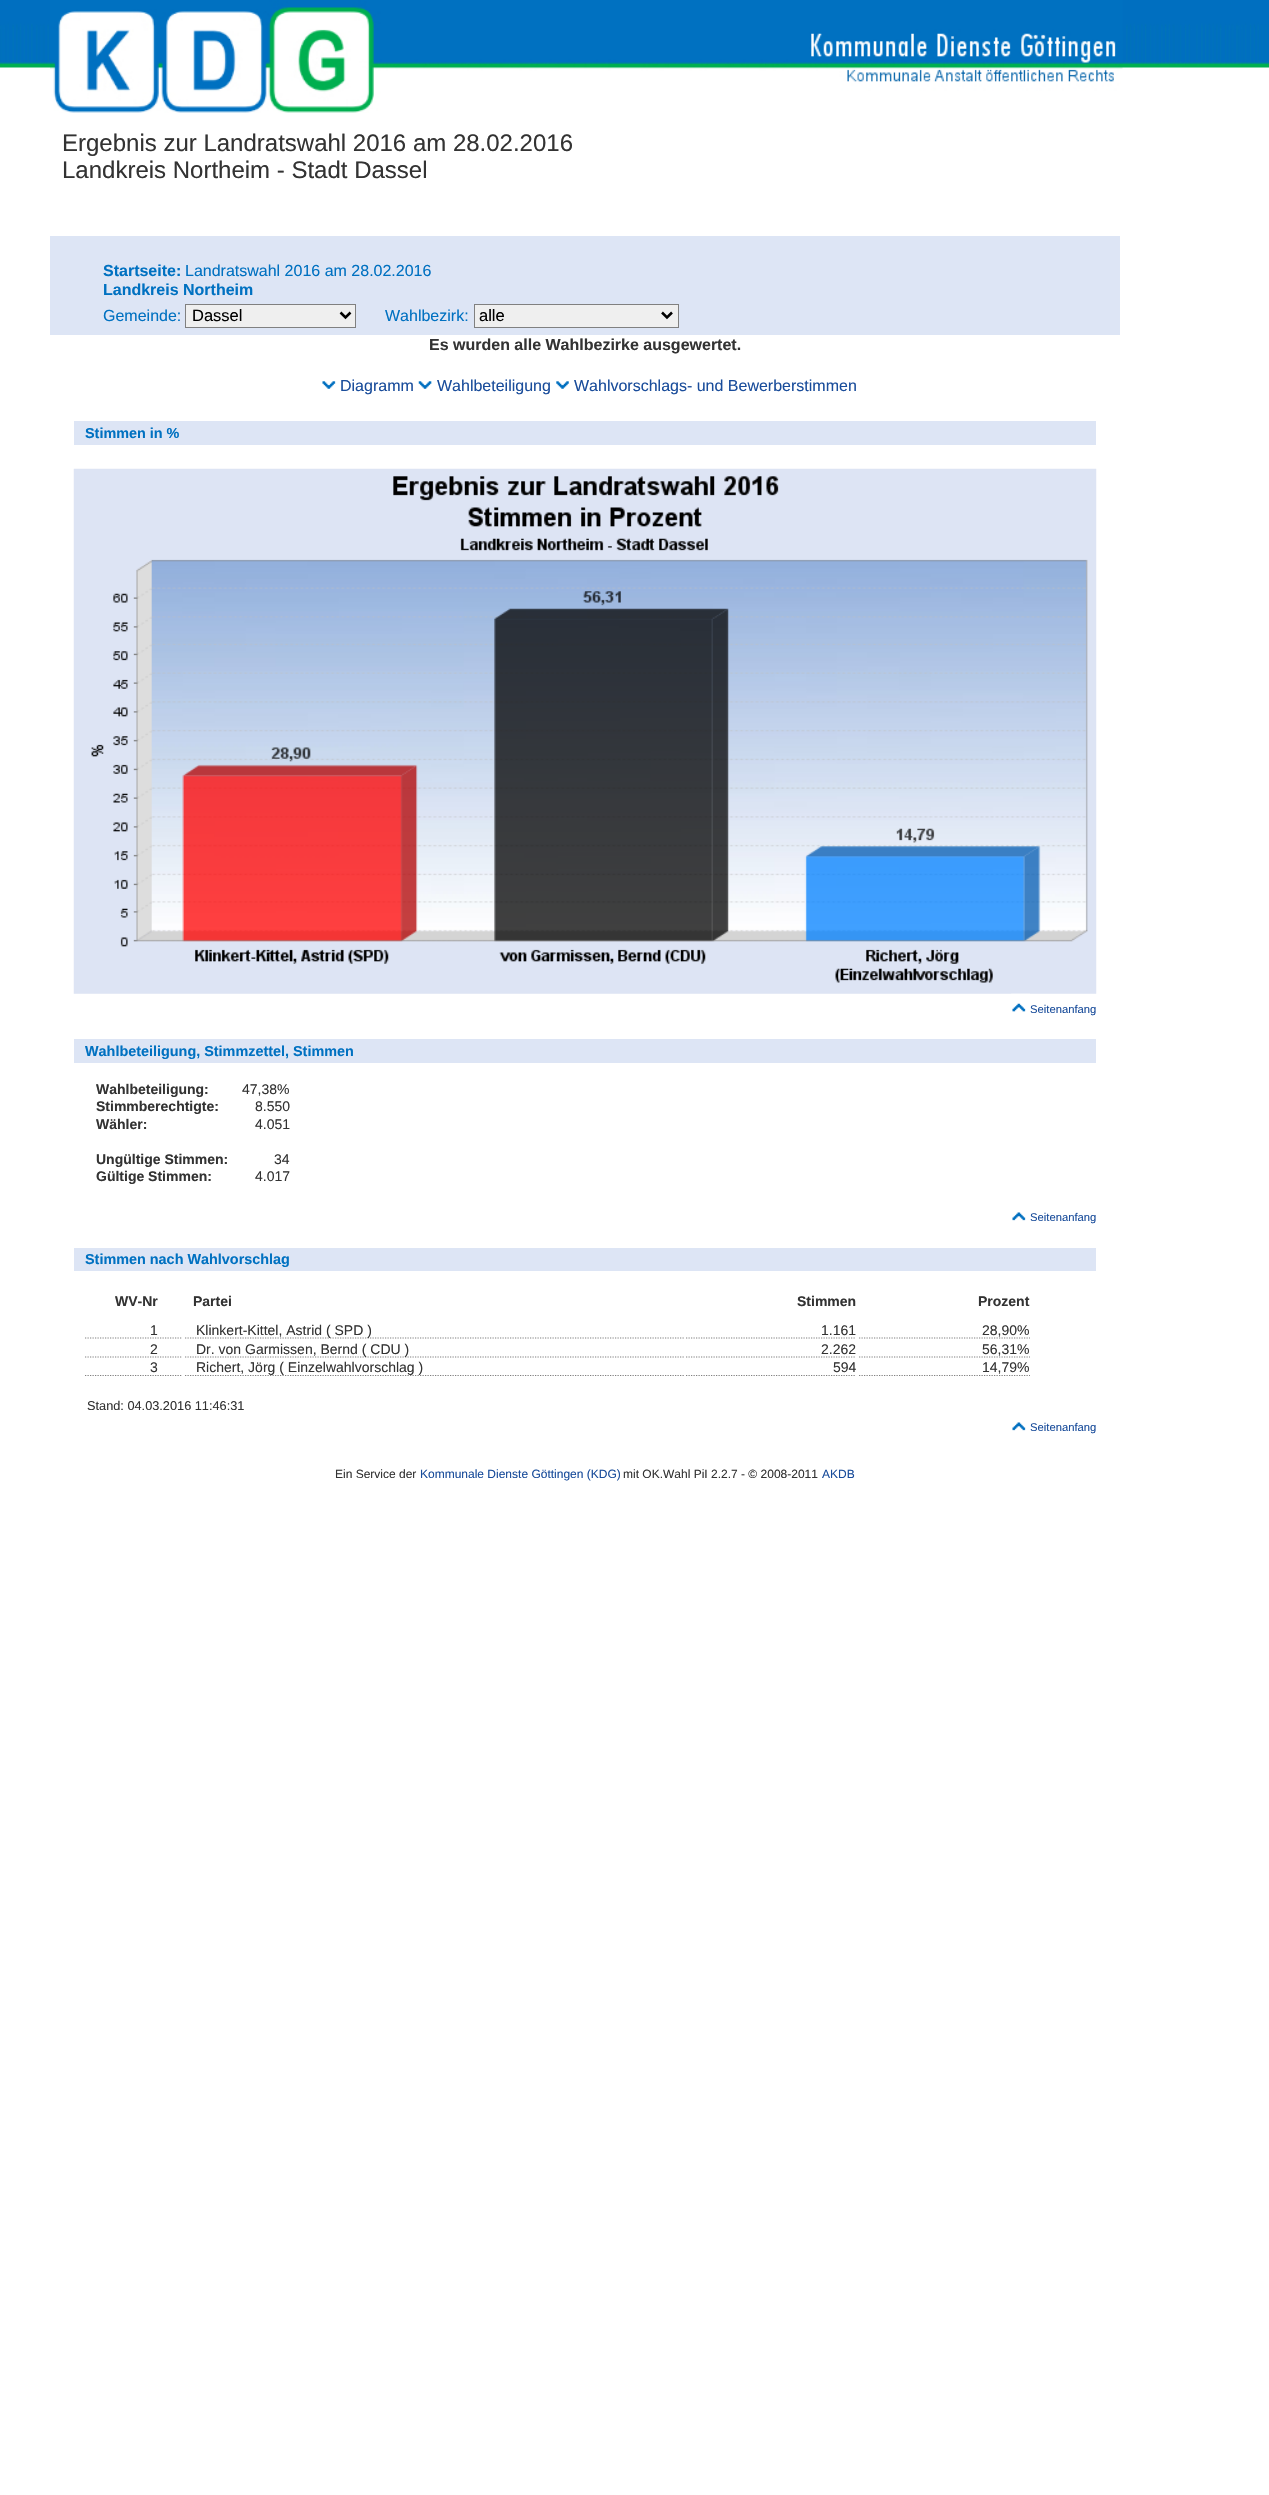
#include "include/core/SkBlurTypes.h"
#include "include/core/SkCanvas.h"
#include "include/core/SkData.h"
#include "include/core/SkFont.h"
#include "include/core/SkFontMgr.h"
#include "include/core/SkImage.h"
#include "include/core/SkMaskFilter.h"
#include "include/core/SkPaint.h"
#include "include/core/SkPathBuilder.h"
#include "include/core/SkTextBlob.h"
#include "include/effects/SkDashPathEffect.h"
#include "include/effects/SkGradientShader.h"
#include "include/utils/SkParsePath.h"

extern sk_sp<SkFontMgr> fontMgr;

void draw(SkCanvas* canvas) {
    SkPaint p;
    p.setAntiAlias(true);
    auto font = [&](const char* family, int weight, float size, bool italic = false) {
        SkFontStyle style(weight, SkFontStyle::kNormal_Width,
            italic ? SkFontStyle::kItalic_Slant : SkFontStyle::kUpright_Slant);
        SkFont result(fontMgr->matchFamilyStyle(family, style), size);
        result.setSubpixel(true);
        return result;
    };
    auto drawPhoto = [&](const char* path, float l, float t, float r, float b) {
        auto image = SkImages::DeferredFromEncodedData(SkData::MakeFromFileName(path));
        canvas->drawImageRect(image, SkRect::MakeLTRB(l, t, r, b), SkSamplingOptions());
    };
    canvas->clear(0xFFFFFFFF);
    drawPhoto("media/1.png", 0, 0, 1269, 68);
    drawPhoto("media/2.png", 50, 0, 1123, 113);
    auto font1 = font("Liberation Sans", 400, 24);
    p.setColor(0xFF333333);
    canvas->drawString("Ergebnis zur Landratswahl 2016 am 28.02.2016", 62, 151, font1, p);
    canvas->drawString("Landkreis Northeim - Stadt Dassel", 62, 178, font1, p);
    p.setColor(0xFFDDE5F5);
    canvas->drawRect(SkRect::MakeLTRB(50, 236, 1120, 335), p);
    auto font2 = font("Liberation Sans", 700, 16);
    p.setColor(0xFF0071C1);
    canvas->drawString("Startseite:", 103, 276, font2, p);
    auto font3 = font("Liberation Sans", 400, 16);
    canvas->drawString("Landratswahl 2016 am 28.02.2016", 185, 276, font3, p);
    canvas->drawString("Landkreis Northeim", 103, 295, font2, p);
    canvas->drawString("Gemeinde:", 103, 321, font3, p);
    p.setColor(0xFFEFEFEF);
    canvas->drawRect(SkRect::MakeLTRB(185.5f, 304.5f, 355.5f, 327.5f), p);
    p.setStyle(SkPaint::kStroke_Style);
    p.setStrokeWidth(1);
    p.setColor(0xFF808080);
    canvas->drawRect(SkRect::MakeLTRB(185.5f, 304.5f, 355.5f, 327.5f), p);
    p.setStrokeWidth(2.5f);
    p.setColor(0xFF000000);
    canvas->drawPath(SkPathBuilder().moveTo(340.5f, 312.5f).lineTo(345.5f, 317.5f).lineTo(350.5f, 312.5f).detach(), p);
    auto font4 = font("Liberation Sans", 400, 16.5f);
    p.setStyle(SkPaint::kFill_Style);
    canvas->drawString("Dassel", 192, 321, font4, p);
    p.setColor(0xFF0071C1);
    canvas->drawString("Wahlbezirk:", 385, 321, font3, p);
    p.setColor(0xFFEFEFEF);
    canvas->drawRect(SkRect::MakeLTRB(474.5f, 304.5f, 678.5f, 327.5f), p);
    p.setStyle(SkPaint::kStroke_Style);
    p.setStrokeWidth(1);
    p.setColor(0xFF808080);
    canvas->drawRect(SkRect::MakeLTRB(474.5f, 304.5f, 678.5f, 327.5f), p);
    p.setStrokeWidth(2.5f);
    p.setColor(0xFF000000);
    canvas->drawPath(SkPathBuilder().moveTo(662, 312.5f).lineTo(667, 317.5f).lineTo(672, 312.5f).detach(), p);
    p.setStyle(SkPaint::kFill_Style);
    canvas->drawString("alle", 479, 321, font4, p);
    p.setColor(0xFF333333);
    canvas->drawString("Es wurden alle Wahlbezirke ausgewertet.", 429, 350, font2, p);
    drawPhoto("media/3.png", 322, 381, 336, 389);
    p.setColor(0xFF1A4D9B);
    canvas->drawString("Diagramm", 340, 391, font3, p);
    drawPhoto("media/4.png", 418, 381, 432, 389);
    canvas->drawString("Wahlbeteiligung", 437, 391, font3, p);
    drawPhoto("media/5.png", 556, 381, 569, 389);
    canvas->drawString("Wahlvorschlags- und Bewerberstimmen", 574, 391, font3, p);
    p.setColor(0xFFDDE5F5);
    canvas->drawRect(SkRect::MakeLTRB(74, 421, 1096, 445), p);
    auto font5 = font("Liberation Sans", 700, 14.4f);
    p.setColor(0xFF0071C1);
    canvas->drawString("Stimmen in %", 85, 438, font5, p);
    drawPhoto("media/6.png", 73, 468, 1097, 994);
    drawPhoto("media/7.png", 1011, 993, 1030, 1012);
    auto font6 = font("Liberation Sans", 400, 11.25f);
    p.setColor(0xFF1A4D9B);
    canvas->drawString("Seitenanfang", 1030, 1013, font6, p);
    p.setColor(0xFFDDE5F5);
    canvas->drawRect(SkRect::MakeLTRB(74, 1039, 1096, 1063), p);
    p.setColor(0xFF0071C1);
    canvas->drawString("Wahlbeteiligung, Stimmzettel, Stimmen", 85, 1056, font5, p);
    auto font7 = font("Liberation Sans", 700, 14);
    p.setColor(0xFF333333);
    canvas->drawString("Wahlbeteiligung:", 96, 1094, font7, p);
    auto font8 = font("Liberation Sans", 400, 14);
    canvas->drawString("47,38%", 242, 1094, font8, p);
    canvas->drawString("Stimmberechtigte:", 96, 1111, font7, p);
    canvas->drawString("8.550", 255, 1111, font8, p);
    canvas->drawString("Wähler:", 96, 1129, font7, p);
    canvas->drawString("4.051", 255, 1129, font8, p);
    canvas->drawString("Ungültige Stimmen:", 96, 1164, font7, p);
    canvas->drawString("34", 274, 1164, font8, p);
    canvas->drawString("Gültige Stimmen:", 96, 1181, font7, p);
    canvas->drawString("4.017", 255, 1181, font8, p);
    drawPhoto("media/8.png", 1012, 1212, 1026, 1221);
    p.setColor(0xFF1A4D9B);
    canvas->drawString("Seitenanfang", 1030, 1221, font6, p);
    p.setColor(0xFFDDE5F5);
    canvas->drawRect(SkRect::MakeLTRB(74, 1248, 1096, 1271), p);
    p.setColor(0xFF0071C1);
    canvas->drawString("Stimmen nach Wahlvorschlag", 85, 1264, font5, p);
    p.setColor(0xFF333333);
    {
        const struct { const char* s; float x, y; } items[] = {
            {"WV-Nr", 115, 1306},
            {"Partei", 193, 1306},
            {"Stimmen", 797, 1306},
            {"Prozent", 978, 1306},
        };
        for (auto [s, x, y] : items) {
            canvas->drawString(s, x, y, font7, p);
        }
    }
    p.setStyle(SkPaint::kStroke_Style);
    p.setStrokeWidth(1.2f);
    p.setColor(0xFF808080);
    p.setPathEffect(SkDashPathEffect::Make({{1.25f, 1.25f}}, 0));
    canvas->drawPath(SkPathBuilder().moveTo(85, 1338).lineTo(182.5f, 1338).detach(), p);
    p.setPathEffect(nullptr);
    p.setStyle(SkPaint::kFill_Style);
    p.setColor(0xFF333333);
    canvas->drawString("1", 150, 1335, font8, p);
    p.setStyle(SkPaint::kStroke_Style);
    p.setColor(0xFF808080);
    p.setPathEffect(SkDashPathEffect::Make({{1.25f, 1.25f}}, 0));
    canvas->drawPath(SkPathBuilder().moveTo(185, 1338).lineTo(684, 1338).detach(), p);
    p.setPathEffect(nullptr);
    p.setStyle(SkPaint::kFill_Style);
    p.setColor(0xFF333333);
    canvas->drawString("Klinkert-Kittel, Astrid ( SPD )", 196, 1335, font8, p);
    p.setStyle(SkPaint::kStroke_Style);
    p.setColor(0xFF808080);
    p.setPathEffect(SkDashPathEffect::Make({{1.25f, 1.25f}}, 0));
    canvas->drawPath(SkPathBuilder().moveTo(686, 1338).lineTo(856, 1338).detach(), p);
    p.setPathEffect(nullptr);
    p.setStyle(SkPaint::kFill_Style);
    p.setColor(0xFF333333);
    canvas->drawString("1.161", 821, 1335, font8, p);
    p.setStyle(SkPaint::kStroke_Style);
    p.setColor(0xFF808080);
    p.setPathEffect(SkDashPathEffect::Make({{1.25f, 1.25f}}, 0));
    canvas->drawPath(SkPathBuilder().moveTo(859, 1338).lineTo(1030, 1338).detach(), p);
    p.setPathEffect(nullptr);
    p.setStyle(SkPaint::kFill_Style);
    p.setColor(0xFF333333);
    canvas->drawString("28,90%", 982, 1335, font8, p);
    p.setStyle(SkPaint::kStroke_Style);
    p.setColor(0xFF808080);
    p.setPathEffect(SkDashPathEffect::Make({{1.25f, 1.25f}}, 0));
    canvas->drawPath(SkPathBuilder().moveTo(85, 1357).lineTo(182.5f, 1357).detach(), p);
    p.setPathEffect(nullptr);
    p.setStyle(SkPaint::kFill_Style);
    p.setColor(0xFF333333);
    canvas->drawString("2", 150, 1354, font8, p);
    p.setStyle(SkPaint::kStroke_Style);
    p.setColor(0xFF808080);
    p.setPathEffect(SkDashPathEffect::Make({{1.25f, 1.25f}}, 0));
    canvas->drawPath(SkPathBuilder().moveTo(185, 1357).lineTo(684, 1357).detach(), p);
    p.setPathEffect(nullptr);
    p.setStyle(SkPaint::kFill_Style);
    p.setColor(0xFF333333);
    canvas->drawString("Dr. von Garmissen, Bernd ( CDU )", 196, 1354, font8, p);
    p.setStyle(SkPaint::kStroke_Style);
    p.setColor(0xFF808080);
    p.setPathEffect(SkDashPathEffect::Make({{1.25f, 1.25f}}, 0));
    canvas->drawPath(SkPathBuilder().moveTo(686, 1357).lineTo(856, 1357).detach(), p);
    p.setPathEffect(nullptr);
    p.setStyle(SkPaint::kFill_Style);
    p.setColor(0xFF333333);
    canvas->drawString("2.262", 821, 1354, font8, p);
    p.setStyle(SkPaint::kStroke_Style);
    p.setColor(0xFF808080);
    p.setPathEffect(SkDashPathEffect::Make({{1.25f, 1.25f}}, 0));
    canvas->drawPath(SkPathBuilder().moveTo(859, 1357).lineTo(1030, 1357).detach(), p);
    p.setPathEffect(nullptr);
    p.setStyle(SkPaint::kFill_Style);
    p.setColor(0xFF333333);
    canvas->drawString("56,31%", 982, 1354, font8, p);
    p.setStyle(SkPaint::kStroke_Style);
    p.setColor(0xFF808080);
    p.setPathEffect(SkDashPathEffect::Make({{1.25f, 1.25f}}, 0));
    canvas->drawPath(SkPathBuilder().moveTo(85, 1375.5f).lineTo(182.5f, 1375.5f).detach(), p);
    p.setPathEffect(nullptr);
    p.setStyle(SkPaint::kFill_Style);
    p.setColor(0xFF333333);
    canvas->drawString("3", 150, 1372, font8, p);
    p.setStyle(SkPaint::kStroke_Style);
    p.setColor(0xFF808080);
    p.setPathEffect(SkDashPathEffect::Make({{1.25f, 1.25f}}, 0));
    canvas->drawPath(SkPathBuilder().moveTo(185, 1375.5f).lineTo(684, 1375.5f).detach(), p);
    p.setPathEffect(nullptr);
    p.setStyle(SkPaint::kFill_Style);
    p.setColor(0xFF333333);
    canvas->drawString("Richert, Jörg ( Einzelwahlvorschlag )", 196, 1372, font8, p);
    p.setStyle(SkPaint::kStroke_Style);
    p.setColor(0xFF808080);
    p.setPathEffect(SkDashPathEffect::Make({{1.25f, 1.25f}}, 0));
    canvas->drawPath(SkPathBuilder().moveTo(686, 1375.5f).lineTo(856, 1375.5f).detach(), p);
    p.setPathEffect(nullptr);
    p.setStyle(SkPaint::kFill_Style);
    p.setColor(0xFF333333);
    canvas->drawString("594", 833, 1372, font8, p);
    p.setStyle(SkPaint::kStroke_Style);
    p.setColor(0xFF808080);
    p.setPathEffect(SkDashPathEffect::Make({{1.25f, 1.25f}}, 0));
    canvas->drawPath(SkPathBuilder().moveTo(859, 1375.5f).lineTo(1030, 1375.5f).detach(), p);
    p.setPathEffect(nullptr);
    p.setStyle(SkPaint::kFill_Style);
    p.setColor(0xFF333333);
    canvas->drawString("14,79%", 982, 1372, font8, p);
    auto font9 = font("Liberation Sans", 400, 12.75f);
    canvas->drawString("Stand: 04.03.2016 11:46:31", 87, 1410, font9, p);
    drawPhoto("media/8.png", 1012, 1422, 1026, 1431);
    p.setColor(0xFF1A4D9B);
    canvas->drawString("Seitenanfang", 1030, 1431, font6, p);
    auto font10 = font("Liberation Sans", 400, 12);
    p.setColor(0xFF333333);
    canvas->drawString("Ein Service der", 335, 1478, font10, p);
    p.setColor(0xFF1A4D9B);
    canvas->drawString("Kommunale Dienste Göttingen (KDG)", 420, 1478, font10, p);
    p.setColor(0xFF333333);
    canvas->drawString("mit OK.Wahl PiI 2.2.7 - © 2008-2011", 623, 1478, font10, p);
    p.setColor(0xFF1A4D9B);
    canvas->drawString("AKDB", 822, 1478, font10, p);
}
